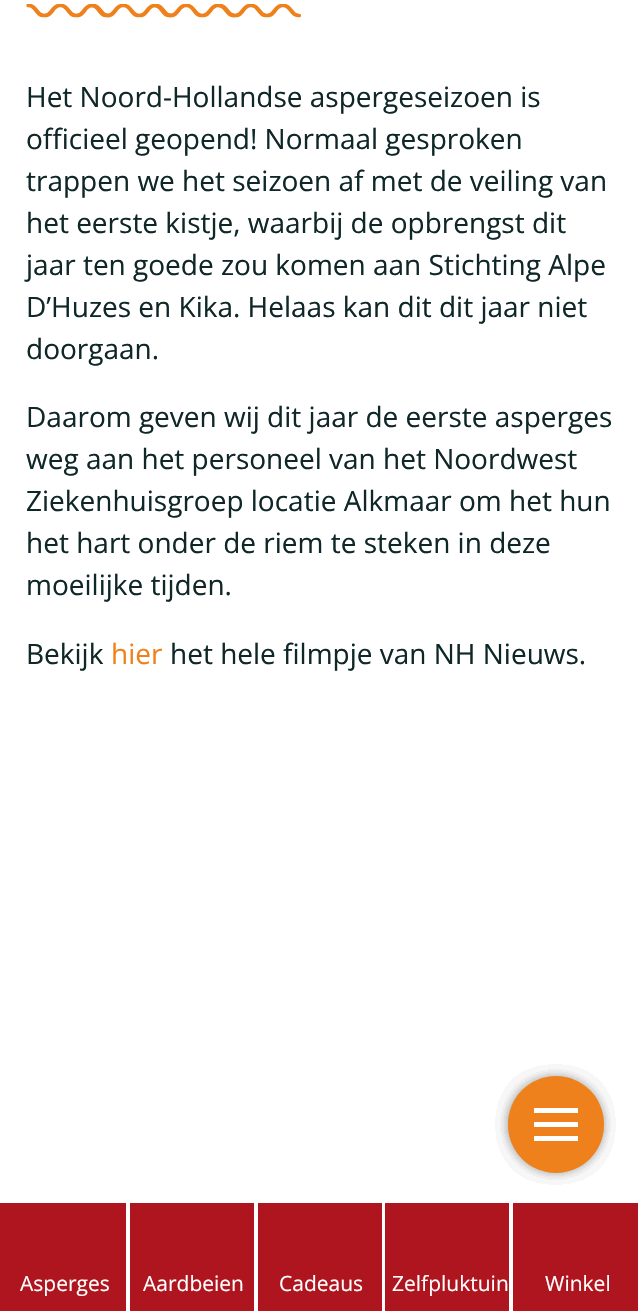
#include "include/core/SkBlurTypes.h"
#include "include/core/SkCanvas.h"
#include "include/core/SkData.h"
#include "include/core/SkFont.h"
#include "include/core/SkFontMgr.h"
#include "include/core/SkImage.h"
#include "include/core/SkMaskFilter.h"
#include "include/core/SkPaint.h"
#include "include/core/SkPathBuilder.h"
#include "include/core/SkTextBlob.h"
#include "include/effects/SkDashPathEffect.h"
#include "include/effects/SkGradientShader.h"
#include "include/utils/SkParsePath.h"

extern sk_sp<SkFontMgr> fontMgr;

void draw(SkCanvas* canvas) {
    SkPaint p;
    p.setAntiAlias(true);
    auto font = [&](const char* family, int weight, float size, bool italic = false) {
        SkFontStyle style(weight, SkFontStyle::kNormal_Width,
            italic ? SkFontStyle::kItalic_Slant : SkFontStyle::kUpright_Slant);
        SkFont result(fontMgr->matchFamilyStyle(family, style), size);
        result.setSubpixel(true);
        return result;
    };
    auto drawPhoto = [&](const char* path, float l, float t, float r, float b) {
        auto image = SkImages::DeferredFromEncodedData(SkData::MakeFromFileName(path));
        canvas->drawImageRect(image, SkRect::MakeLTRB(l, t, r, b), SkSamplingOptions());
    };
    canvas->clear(0xFFFFFFFF);
    drawPhoto("media/1.png", 26, 4, 301, 18);
    auto font1 = font("Open Sans", 400, 28);
    p.setColor(0xFF102728);
    {
        const struct { const char* s; float x, y; } items[] = {
            {"Het Noord-Hollandse aspergeseizoen is", 26, 107},
            {"officieel geopend! Normaal gesproken", 26, 149},
            {"trappen we het seizoen af met de veiling van", 26, 191},
            {"het eerste kistje, waarbij de opbrengst dit", 26, 233},
            {"jaar ten goede zou komen aan Stichting Alpe", 26, 275},
            {"D’Huzes en Kika. Helaas kan dit dit jaar niet", 26, 317},
            {"doorgaan.", 26, 359},
            {"Daarom geven wij dit jaar de eerste asperges", 26, 427},
            {"weg aan het personeel van het Noordwest", 26, 469},
            {"Ziekenhuisgroep locatie Alkmaar om het hun", 26, 511},
            {"het hart onder de riem te steken in deze", 26, 553},
            {"moeilijke tijden.", 26, 595},
            {"Bekijk", 26, 664},
        };
        for (auto [s, x, y] : items) {
            canvas->drawString(s, x, y, font1, p);
        }
    }
    p.setColor(0xFFEF811D);
    canvas->drawString("hier", 111, 664, font1, p);
    p.setColor(0xFF102728);
    canvas->drawString("het hele filmpje van NH Nieuws.", 170, 664, font1, p);
    p.setColor(0xFFAE151E);
    canvas->drawRect(SkRect::MakeLTRB(0, 1203, 638, 1311), p);
    p.setColor(0xFFFFFFFF);
    canvas->drawRect(SkRect::MakeLTRB(126, 1202, 130, 1311), p);
    auto font2 = font("Open Sans", 400, 21);
    canvas->drawString("Asperges", 20, 1291, font2, p);
    canvas->drawRect(SkRect::MakeLTRB(254, 1202, 258, 1311), p);
    canvas->drawString("Aardbeien", 143, 1291, font2, p);
    canvas->drawRect(SkRect::MakeLTRB(382, 1202, 385, 1311), p);
    canvas->drawString("Cadeaus", 279, 1291, font2, p);
    canvas->drawRect(SkRect::MakeLTRB(509, 1202, 513, 1311), p);
    canvas->drawString("Zelfpluktuin", 392, 1291, font2, p);
    canvas->drawString("Winkel", 545, 1291, font2, p);
    p.setColor(0x33000000);
    p.setMaskFilter(SkMaskFilter::MakeBlur(kNormal_SkBlurStyle, 9));
    canvas->drawRoundRect(SkRect::MakeLTRB(516, 1085, 595, 1164), 39.5f, 39.5f, p);
    p.setMaskFilter(nullptr);
    p.setMaskFilter(SkMaskFilter::MakeBlur(kNormal_SkBlurStyle, 9));
    canvas->drawRoundRect(SkRect::MakeLTRB(516, 1085, 595, 1164), 39.5f, 39.5f, p);
    p.setMaskFilter(nullptr);
    p.setMaskFilter(SkMaskFilter::MakeBlur(kNormal_SkBlurStyle, 9));
    canvas->drawRoundRect(SkRect::MakeLTRB(516, 1085, 595, 1164), 39.5f, 39.5f, p);
    p.setMaskFilter(nullptr);
    p.setMaskFilter(SkMaskFilter::MakeBlur(kNormal_SkBlurStyle, 9));
    canvas->drawRoundRect(SkRect::MakeLTRB(516, 1085, 595, 1164), 39.5f, 39.5f, p);
    p.setMaskFilter(nullptr);
    p.setMaskFilter(SkMaskFilter::MakeBlur(kNormal_SkBlurStyle, 9));
    canvas->drawRoundRect(SkRect::MakeLTRB(516, 1085, 595, 1164), 39.5f, 39.5f, p);
    p.setMaskFilter(nullptr);
    p.setMaskFilter(SkMaskFilter::MakeBlur(kNormal_SkBlurStyle, 9));
    canvas->drawRoundRect(SkRect::MakeLTRB(516, 1085, 595, 1164), 39.5f, 39.5f, p);
    p.setMaskFilter(nullptr);
    p.setMaskFilter(SkMaskFilter::MakeBlur(kNormal_SkBlurStyle, 9));
    canvas->drawRoundRect(SkRect::MakeLTRB(516, 1085, 595, 1164), 39.5f, 39.5f, p);
    p.setMaskFilter(nullptr);
    p.setMaskFilter(SkMaskFilter::MakeBlur(kNormal_SkBlurStyle, 9));
    canvas->drawRoundRect(SkRect::MakeLTRB(516, 1085, 595, 1164), 39.5f, 39.5f, p);
    p.setMaskFilter(nullptr);
    p.setColor(0xFFEF811D);
    canvas->drawRoundRect(SkRect::MakeLTRB(508, 1076, 604, 1173), 48, 48, p);
    {
        const struct { float l, t, r, b; SkColor color; } items[] = {
            {534, 1108, 578, 1113, 0xFFFFFFFF},
            {534, 1122, 578, 1127, 0xFFFFFFFF},
            {534, 1136, 578, 1141, 0xFFFFFFFF},
        };
        for (auto [l, t, r, b, color] : items) {
            p.setColor(color);
            canvas->drawRect(SkRect::MakeLTRB(l, t, r, b), p);
        }
    }
}
